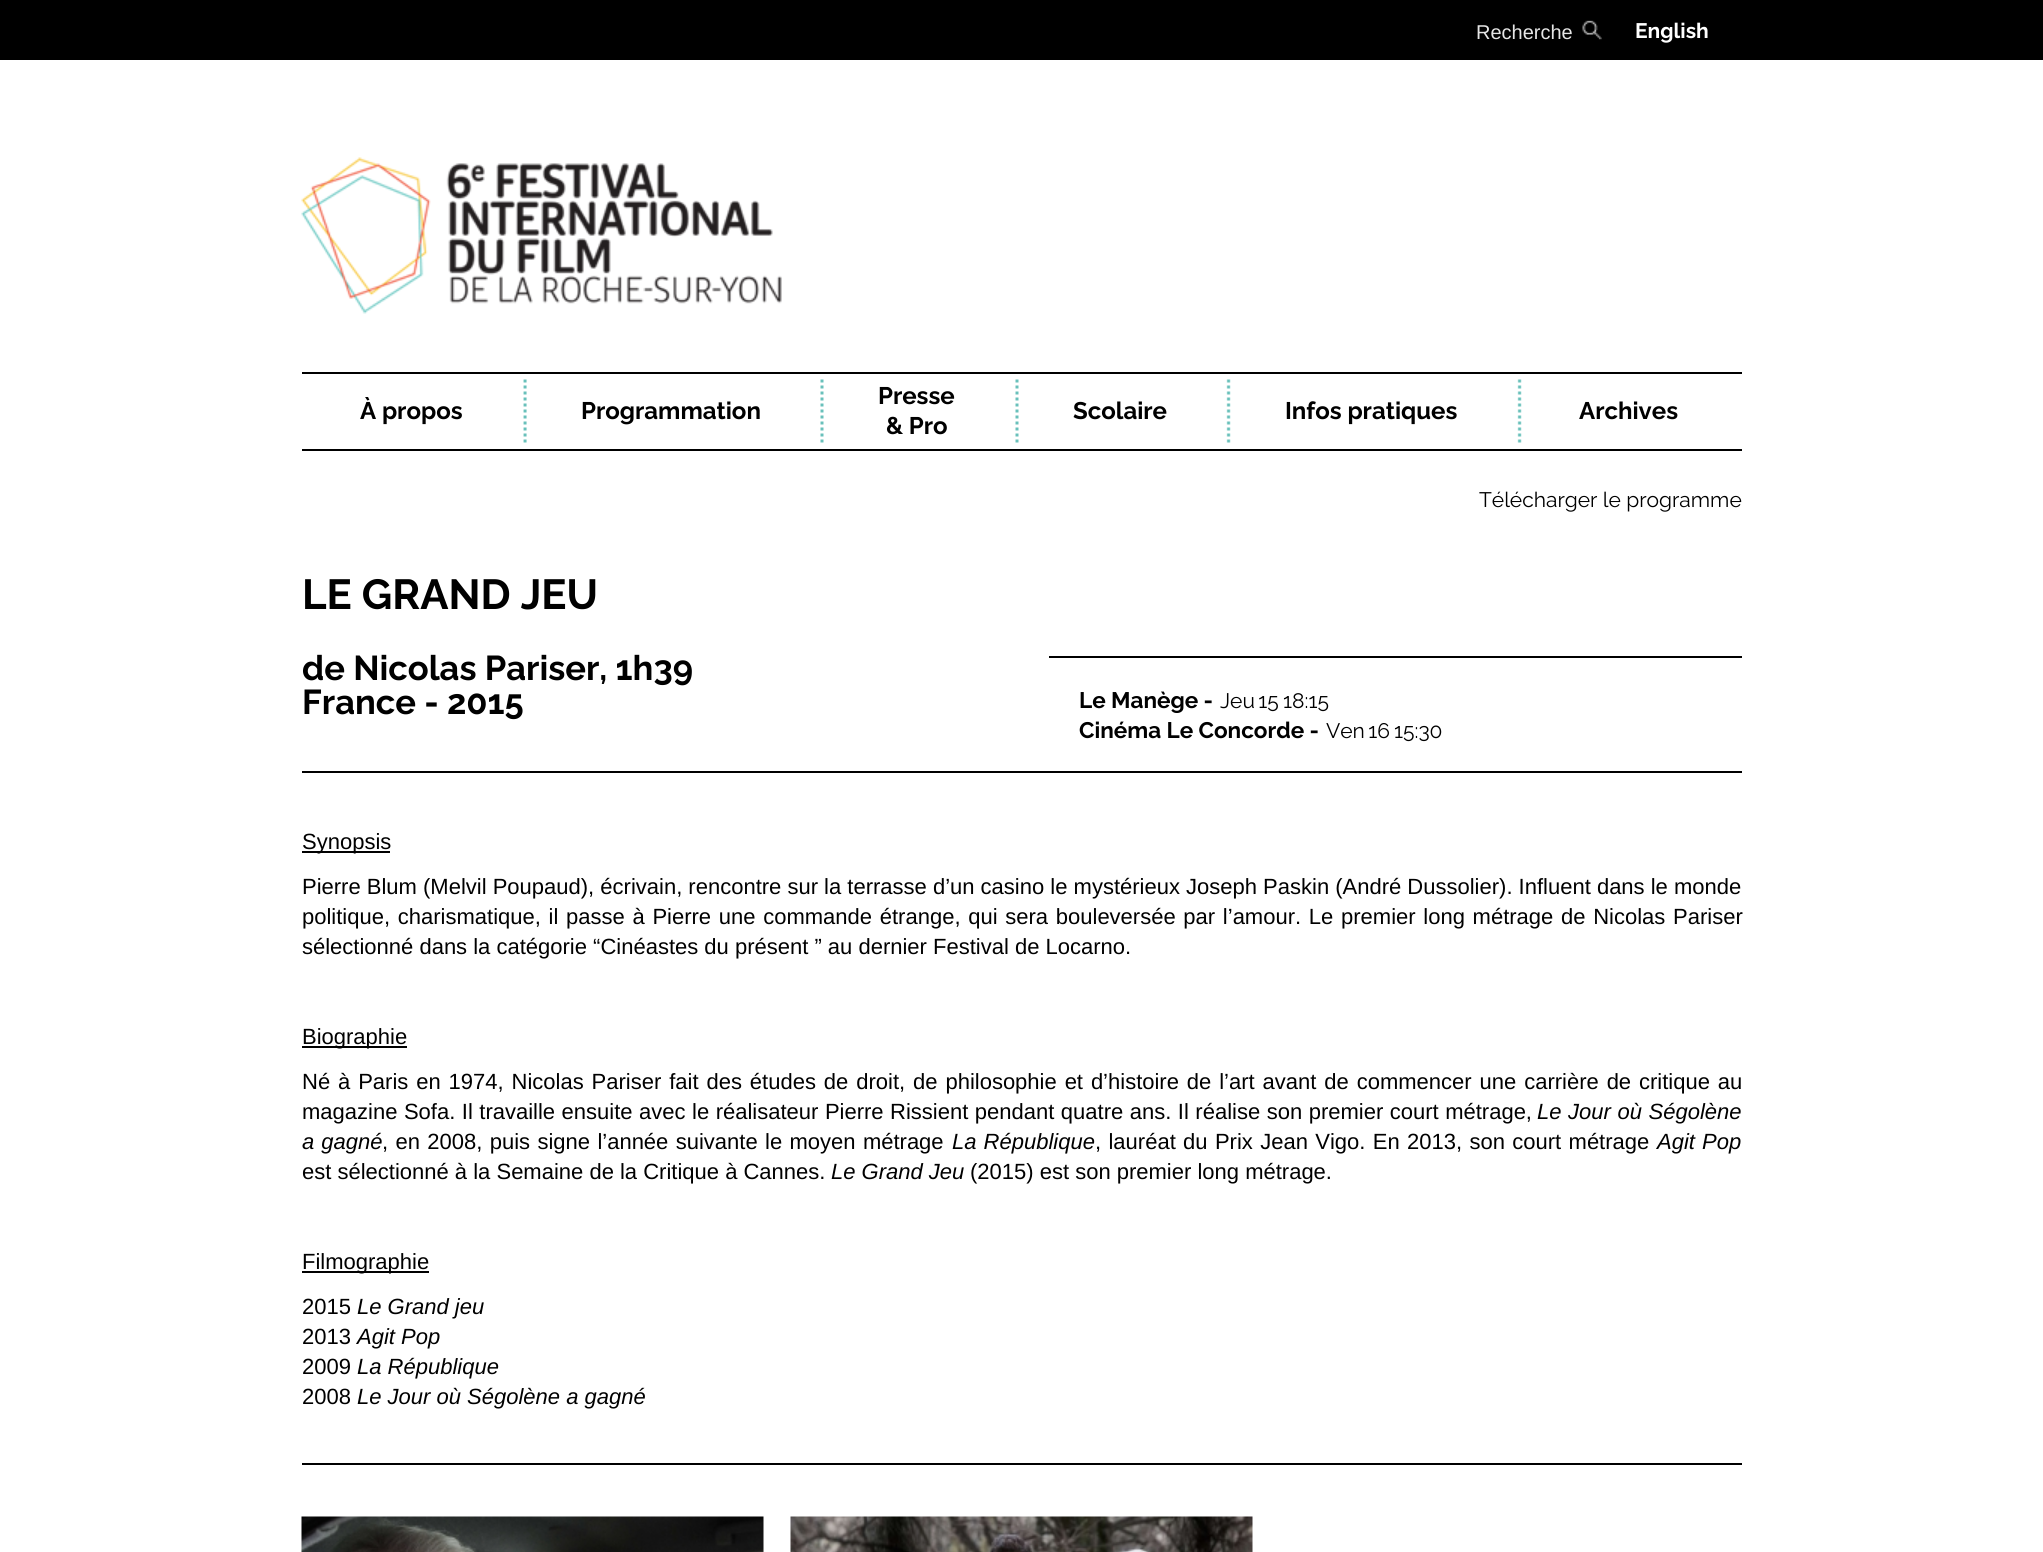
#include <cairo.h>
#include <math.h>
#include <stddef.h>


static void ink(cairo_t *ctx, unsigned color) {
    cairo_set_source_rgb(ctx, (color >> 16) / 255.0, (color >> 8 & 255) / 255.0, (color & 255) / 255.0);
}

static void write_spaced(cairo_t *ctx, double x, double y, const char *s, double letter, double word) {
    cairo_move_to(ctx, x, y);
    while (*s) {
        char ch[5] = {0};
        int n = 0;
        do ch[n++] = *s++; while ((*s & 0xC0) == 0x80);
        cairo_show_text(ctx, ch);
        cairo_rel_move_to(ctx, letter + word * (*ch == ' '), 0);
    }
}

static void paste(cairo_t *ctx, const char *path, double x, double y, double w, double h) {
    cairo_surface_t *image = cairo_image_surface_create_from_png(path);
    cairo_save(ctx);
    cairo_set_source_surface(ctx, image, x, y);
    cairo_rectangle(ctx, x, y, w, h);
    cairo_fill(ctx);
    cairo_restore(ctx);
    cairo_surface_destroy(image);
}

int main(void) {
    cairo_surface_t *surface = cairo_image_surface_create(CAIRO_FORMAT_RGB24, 2043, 1552);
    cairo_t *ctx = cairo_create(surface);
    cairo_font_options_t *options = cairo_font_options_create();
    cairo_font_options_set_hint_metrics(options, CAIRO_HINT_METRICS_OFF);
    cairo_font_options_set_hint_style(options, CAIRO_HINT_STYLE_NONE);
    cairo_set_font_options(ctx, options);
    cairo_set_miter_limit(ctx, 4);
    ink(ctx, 0xFFFFFF);
    cairo_paint(ctx);
    ink(ctx, 0x000000);
    cairo_rectangle(ctx, 0, 0, 2043, 60);
    cairo_fill(ctx);
    cairo_select_font_face(ctx, "Liberation Sans", CAIRO_FONT_SLANT_NORMAL, CAIRO_FONT_WEIGHT_NORMAL);
    cairo_set_font_size(ctx, 20);
    ink(ctx, 0xE6E6E6);
    cairo_move_to(ctx, 1476, 39);
    cairo_show_text(ctx, "Recherche");
    paste(ctx, "media/1.png", 1582, 20, 20, 20);
    cairo_select_font_face(ctx, "Raleway", CAIRO_FONT_SLANT_NORMAL, CAIRO_FONT_WEIGHT_BOLD);
    cairo_set_font_size(ctx, 21);
    ink(ctx, 0xFFFFFF);
    cairo_move_to(ctx, 1635, 38);
    cairo_show_text(ctx, "English");
    paste(ctx, "media/2.png", 301, 157, 481, 157);
    ink(ctx, 0x000000);
    cairo_rectangle(ctx, 302, 372, 1440, 2);
    cairo_fill(ctx);
    cairo_rectangle(ctx, 302, 449, 1440, 2);
    cairo_fill(ctx);
    cairo_set_font_size(ctx, 24);
    cairo_move_to(ctx, 360, 419);
    cairo_show_text(ctx, "À propos");
    paste(ctx, "media/3.png", 523, 379, 4, 64);
    cairo_move_to(ctx, 581, 419);
    cairo_show_text(ctx, "Programmation");
    paste(ctx, "media/4.png", 820, 379, 4, 64);
    cairo_move_to(ctx, 878, 404);
    cairo_show_text(ctx, "Presse");
    cairo_move_to(ctx, 886, 434);
    cairo_show_text(ctx, "& Pro");
    paste(ctx, "media/4.png", 1015, 379, 4, 64);
    cairo_move_to(ctx, 1073, 419);
    cairo_show_text(ctx, "Scolaire");
    paste(ctx, "media/5.png", 1226, 379, 5, 64);
    cairo_move_to(ctx, 1285, 419);
    cairo_show_text(ctx, "Infos pratiques");
    paste(ctx, "media/5.png", 1517, 379, 5, 64);
    cairo_move_to(ctx, 1579, 419);
    cairo_show_text(ctx, "Archives");
    cairo_select_font_face(ctx, "Raleway", CAIRO_FONT_SLANT_NORMAL, CAIRO_FONT_WEIGHT_NORMAL);
    cairo_set_font_size(ctx, 21);
    cairo_move_to(ctx, 1479, 507);
    cairo_show_text(ctx, "Télécharger le programme");
    cairo_select_font_face(ctx, "Raleway", CAIRO_FONT_SLANT_NORMAL, CAIRO_FONT_WEIGHT_BOLD);
    cairo_set_font_size(ctx, 42);
    cairo_move_to(ctx, 302, 609);
    cairo_show_text(ctx, "LE GRAND JEU");
    cairo_set_font_size(ctx, 34.5);
    cairo_move_to(ctx, 302, 680);
    cairo_show_text(ctx, "de Nicolas Pariser, 1h39");
    cairo_move_to(ctx, 302, 714);
    cairo_show_text(ctx, "France - 2015");
    cairo_rectangle(ctx, 1049, 656, 693, 2);
    cairo_fill(ctx);
    cairo_set_font_size(ctx, 22.5);
    cairo_move_to(ctx, 1079, 708);
    cairo_show_text(ctx, "Le Manège -");
    cairo_select_font_face(ctx, "Raleway", CAIRO_FONT_SLANT_NORMAL, CAIRO_FONT_WEIGHT_NORMAL);
    cairo_set_font_size(ctx, 21);
    write_spaced(ctx, 1220, 708, "Jeu 15", 0, -2);
    cairo_move_to(ctx, 1283, 708);
    cairo_show_text(ctx, "18:15");
    cairo_select_font_face(ctx, "Raleway", CAIRO_FONT_SLANT_NORMAL, CAIRO_FONT_WEIGHT_BOLD);
    cairo_set_font_size(ctx, 22.5);
    cairo_move_to(ctx, 1079, 738);
    cairo_show_text(ctx, "Cinéma Le Concorde -");
    cairo_select_font_face(ctx, "Raleway", CAIRO_FONT_SLANT_NORMAL, CAIRO_FONT_WEIGHT_NORMAL);
    cairo_set_font_size(ctx, 21);
    write_spaced(ctx, 1326, 738, "Ven 16", 0, -2);
    cairo_move_to(ctx, 1394, 738);
    cairo_show_text(ctx, "15:30");
    cairo_rectangle(ctx, 302, 771, 1440, 2);
    cairo_fill(ctx);
    cairo_rectangle(ctx, 302, 851, 88, 2);
    cairo_fill(ctx);
    cairo_select_font_face(ctx, "Liberation Sans", CAIRO_FONT_SLANT_NORMAL, CAIRO_FONT_WEIGHT_NORMAL);
    cairo_set_font_size(ctx, 22);
    cairo_move_to(ctx, 302, 849);
    cairo_show_text(ctx, "Synopsis");
    cairo_move_to(ctx, 302, 894);
    cairo_show_text(ctx, "Pierre Blum (Melvil Poupaud), écrivain, rencontre sur la terrasse d’un casino le mystérieux Joseph Paskin (André Dussolier). Influent dans le monde");
    write_spaced(ctx, 302, 924, "politique, charismatique, il passe à Pierre une commande étrange, qui sera bouleversée par l’amour. Le premier long métrage de Nicolas Pariser", 0, 1.6);
    cairo_move_to(ctx, 302, 954);
    cairo_show_text(ctx, "sélectionné dans la catégorie “Cinéastes du présent ” au dernier Festival de Locarno.");
    cairo_rectangle(ctx, 302, 1046, 105, 2);
    cairo_fill(ctx);
    cairo_move_to(ctx, 302, 1044);
    cairo_show_text(ctx, "Biographie");
    write_spaced(ctx, 302, 1089, "Né à Paris en 1974, Nicolas Pariser fait des études de droit, de philosophie et d’histoire de l’art avant de commencer une carrière de critique au", 0, 1.8);
    write_spaced(ctx, 302, 1119, "magazine Sofa. Il travaille ensuite avec le réalisateur Pierre Rissient pendant quatre ans. Il réalise son premier court métrage,", 0, 0.4);
    cairo_select_font_face(ctx, "Liberation Sans", CAIRO_FONT_SLANT_ITALIC, CAIRO_FONT_WEIGHT_NORMAL);
    write_spaced(ctx, 1537, 1119, "Le Jour où Ségolène", 0, 0.5);
    write_spaced(ctx, 302, 1149, "a gagné", 0, 1);
    cairo_select_font_face(ctx, "Liberation Sans", CAIRO_FONT_SLANT_NORMAL, CAIRO_FONT_WEIGHT_NORMAL);
    write_spaced(ctx, 382, 1149, ", en 2008, puis signe l’année suivante le moyen métrage", 0, 1.25);
    cairo_select_font_face(ctx, "Liberation Sans", CAIRO_FONT_SLANT_ITALIC, CAIRO_FONT_WEIGHT_NORMAL);
    write_spaced(ctx, 952, 1149, "La République", 0, 1);
    cairo_select_font_face(ctx, "Liberation Sans", CAIRO_FONT_SLANT_NORMAL, CAIRO_FONT_WEIGHT_NORMAL);
    write_spaced(ctx, 1095, 1149, ", lauréat du Prix Jean Vigo. En 2013, son court métrage", 0, 1.25);
    cairo_select_font_face(ctx, "Liberation Sans", CAIRO_FONT_SLANT_ITALIC, CAIRO_FONT_WEIGHT_NORMAL);
    write_spaced(ctx, 1657, 1149, "Agit Pop", 0, 1);
    cairo_select_font_face(ctx, "Liberation Sans", CAIRO_FONT_SLANT_NORMAL, CAIRO_FONT_WEIGHT_NORMAL);
    cairo_move_to(ctx, 302, 1179);
    cairo_show_text(ctx, "est sélectionné à la Semaine de la Critique à Cannes.");
    cairo_select_font_face(ctx, "Liberation Sans", CAIRO_FONT_SLANT_ITALIC, CAIRO_FONT_WEIGHT_NORMAL);
    cairo_move_to(ctx, 831, 1179);
    cairo_show_text(ctx, "Le Grand Jeu");
    cairo_select_font_face(ctx, "Liberation Sans", CAIRO_FONT_SLANT_NORMAL, CAIRO_FONT_WEIGHT_NORMAL);
    cairo_move_to(ctx, 970, 1179);
    cairo_show_text(ctx, "(2015) est son premier long métrage.");
    cairo_rectangle(ctx, 302, 1271, 127, 2);
    cairo_fill(ctx);
    cairo_move_to(ctx, 302, 1269);
    cairo_show_text(ctx, "Filmographie");
    cairo_move_to(ctx, 302, 1314);
    cairo_show_text(ctx, "2015");
    cairo_select_font_face(ctx, "Liberation Sans", CAIRO_FONT_SLANT_ITALIC, CAIRO_FONT_WEIGHT_NORMAL);
    cairo_move_to(ctx, 357, 1314);
    cairo_show_text(ctx, "Le Grand jeu");
    cairo_select_font_face(ctx, "Liberation Sans", CAIRO_FONT_SLANT_NORMAL, CAIRO_FONT_WEIGHT_NORMAL);
    cairo_move_to(ctx, 302, 1344);
    cairo_show_text(ctx, "2013");
    cairo_select_font_face(ctx, "Liberation Sans", CAIRO_FONT_SLANT_ITALIC, CAIRO_FONT_WEIGHT_NORMAL);
    cairo_move_to(ctx, 357, 1344);
    cairo_show_text(ctx, "Agit Pop");
    cairo_select_font_face(ctx, "Liberation Sans", CAIRO_FONT_SLANT_NORMAL, CAIRO_FONT_WEIGHT_NORMAL);
    cairo_move_to(ctx, 302, 1374);
    cairo_show_text(ctx, "2009");
    cairo_select_font_face(ctx, "Liberation Sans", CAIRO_FONT_SLANT_ITALIC, CAIRO_FONT_WEIGHT_NORMAL);
    cairo_move_to(ctx, 357, 1374);
    cairo_show_text(ctx, "La République");
    cairo_select_font_face(ctx, "Liberation Sans", CAIRO_FONT_SLANT_NORMAL, CAIRO_FONT_WEIGHT_NORMAL);
    cairo_move_to(ctx, 302, 1404);
    cairo_show_text(ctx, "2008");
    cairo_select_font_face(ctx, "Liberation Sans", CAIRO_FONT_SLANT_ITALIC, CAIRO_FONT_WEIGHT_NORMAL);
    cairo_move_to(ctx, 357, 1404);
    cairo_show_text(ctx, "Le Jour où Ségolène a gagné");
    cairo_rectangle(ctx, 302, 1463, 1440, 2);
    cairo_fill(ctx);
    paste(ctx, "media/6.png", 301, 1516, 463, 36);
    paste(ctx, "media/7.png", 790, 1516, 463, 36);
    cairo_surface_write_to_png(surface, "image.png");
    cairo_font_options_destroy(options);
    cairo_destroy(ctx);
    cairo_surface_destroy(surface);
    return 0;
}
